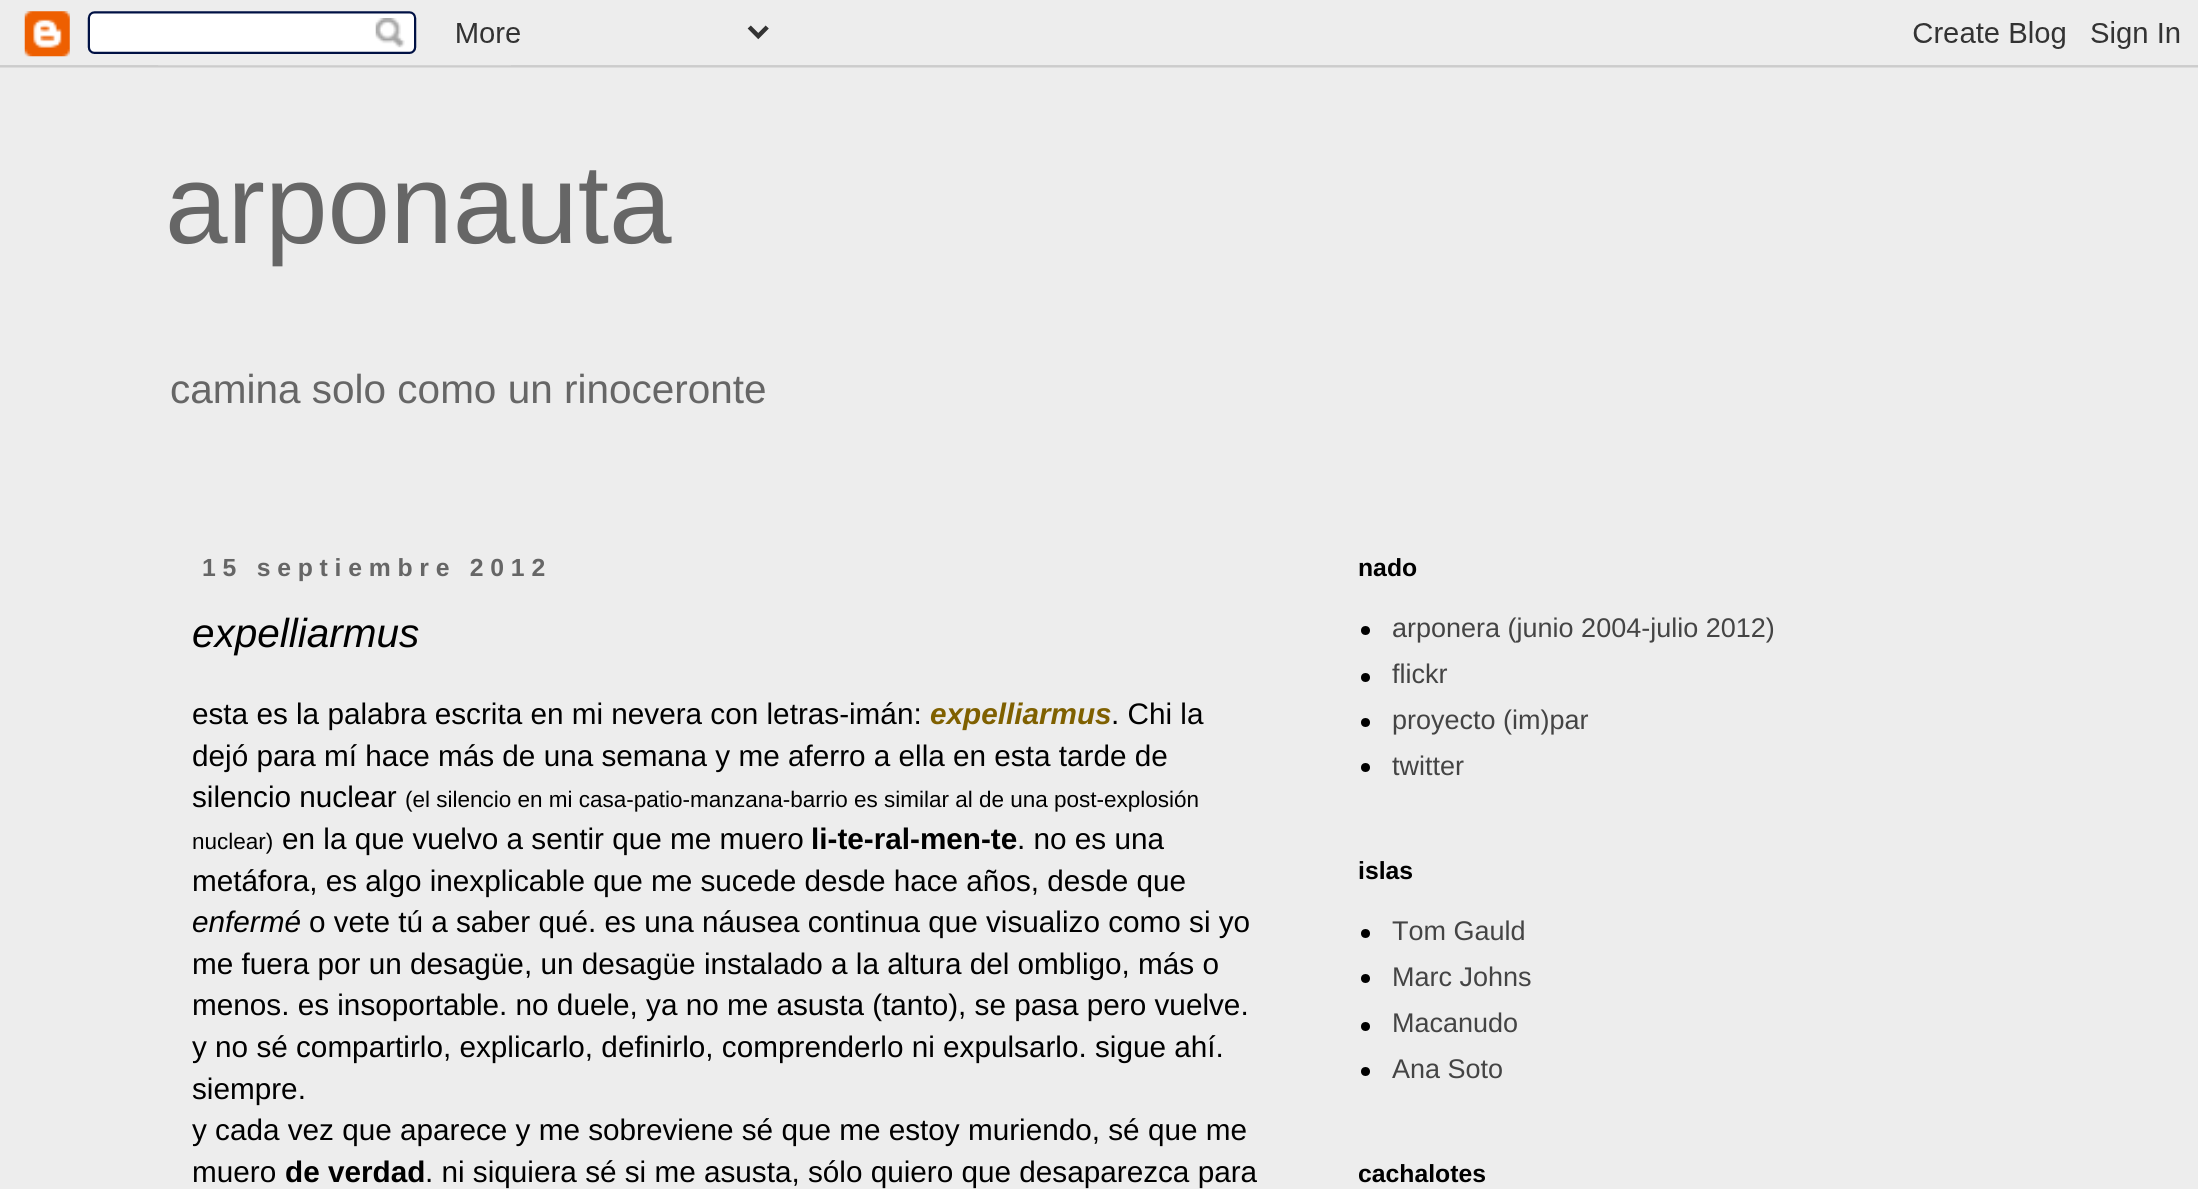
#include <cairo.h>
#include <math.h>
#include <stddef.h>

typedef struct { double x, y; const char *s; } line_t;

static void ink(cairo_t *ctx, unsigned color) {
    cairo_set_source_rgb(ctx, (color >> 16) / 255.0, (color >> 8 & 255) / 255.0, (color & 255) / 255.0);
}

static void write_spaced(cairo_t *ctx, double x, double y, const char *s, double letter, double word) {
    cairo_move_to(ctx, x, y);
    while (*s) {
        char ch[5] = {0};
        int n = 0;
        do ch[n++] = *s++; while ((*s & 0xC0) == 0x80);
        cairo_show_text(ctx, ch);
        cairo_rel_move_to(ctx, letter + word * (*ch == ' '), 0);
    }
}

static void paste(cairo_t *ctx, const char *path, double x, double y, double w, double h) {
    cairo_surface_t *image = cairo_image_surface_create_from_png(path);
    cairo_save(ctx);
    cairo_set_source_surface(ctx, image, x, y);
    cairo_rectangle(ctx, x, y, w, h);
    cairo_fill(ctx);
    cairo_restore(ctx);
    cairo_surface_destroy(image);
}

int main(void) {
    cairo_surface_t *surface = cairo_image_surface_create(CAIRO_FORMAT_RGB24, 2198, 1189);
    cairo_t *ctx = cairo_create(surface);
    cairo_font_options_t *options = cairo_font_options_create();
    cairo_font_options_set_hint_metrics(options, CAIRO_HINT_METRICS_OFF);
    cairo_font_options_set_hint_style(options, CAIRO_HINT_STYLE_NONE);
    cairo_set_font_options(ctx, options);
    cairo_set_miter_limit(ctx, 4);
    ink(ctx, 0xEDEDED);
    cairo_paint(ctx);
    paste(ctx, "media/1.png", 0, 11, 2198, 57);
    cairo_select_font_face(ctx, "Liberation Sans", CAIRO_FONT_SLANT_NORMAL, CAIRO_FONT_WEIGHT_NORMAL);
    cairo_set_font_size(ctx, 112.5);
    ink(ctx, 0x666666);
    cairo_move_to(ctx, 165, 243);
    cairo_show_text(ctx, "arponauta");
    cairo_set_font_size(ctx, 40.5);
    cairo_move_to(ctx, 170, 403);
    cairo_show_text(ctx, "camina solo como un rinoceronte");
    cairo_select_font_face(ctx, "Liberation Sans", CAIRO_FONT_SLANT_NORMAL, CAIRO_FONT_WEIGHT_BOLD);
    cairo_set_font_size(ctx, 24.75);
    write_spaced(ctx, 202, 576, "15 septiembre 2012", 6.75, 0);
    cairo_select_font_face(ctx, "Liberation Sans", CAIRO_FONT_SLANT_ITALIC, CAIRO_FONT_WEIGHT_NORMAL);
    cairo_set_font_size(ctx, 40.5);
    ink(ctx, 0x000000);
    cairo_move_to(ctx, 192, 647);
    cairo_show_text(ctx, "expelliarmus");
    cairo_select_font_face(ctx, "Liberation Sans", CAIRO_FONT_SLANT_NORMAL, CAIRO_FONT_WEIGHT_NORMAL);
    cairo_set_font_size(ctx, 29.7);
    cairo_move_to(ctx, 192, 724);
    cairo_show_text(ctx, "esta es la palabra escrita en mi nevera con letras-imán:");
    cairo_select_font_face(ctx, "Liberation Sans", CAIRO_FONT_SLANT_ITALIC, CAIRO_FONT_WEIGHT_BOLD);
    ink(ctx, 0x7F6000);
    cairo_move_to(ctx, 930, 724);
    cairo_show_text(ctx, "expelliarmus");
    cairo_select_font_face(ctx, "Liberation Sans", CAIRO_FONT_SLANT_NORMAL, CAIRO_FONT_WEIGHT_NORMAL);
    ink(ctx, 0x000000);
    {
        static const line_t items[] = {
            {1111, 724, ". Chi la"},
            {192, 766, "dejó para mí hace más de una semana y me aferro a ella en esta tarde de"},
            {192, 807, "silencio nuclear"},
        };
        for (size_t i = 0; i < sizeof items / sizeof *items; i++) {
            cairo_move_to(ctx, items[i].x, items[i].y);
            cairo_show_text(ctx, items[i].s);
        }
    }
    cairo_set_font_size(ctx, 22.5);
    cairo_move_to(ctx, 405, 807);
    cairo_show_text(ctx, "(el silencio en mi casa-patio-manzana-barrio es similar al de una post-explosión");
    cairo_move_to(ctx, 192, 849);
    cairo_show_text(ctx, "nuclear)");
    cairo_set_font_size(ctx, 29.7);
    cairo_move_to(ctx, 282, 849);
    cairo_show_text(ctx, "en la que vuelvo a sentir que me muero");
    cairo_select_font_face(ctx, "Liberation Sans", CAIRO_FONT_SLANT_NORMAL, CAIRO_FONT_WEIGHT_BOLD);
    cairo_move_to(ctx, 811, 849);
    cairo_show_text(ctx, "li-te-ral-men-te");
    cairo_select_font_face(ctx, "Liberation Sans", CAIRO_FONT_SLANT_NORMAL, CAIRO_FONT_WEIGHT_NORMAL);
    cairo_move_to(ctx, 1017, 849);
    cairo_show_text(ctx, ". no es una");
    cairo_move_to(ctx, 192, 891);
    cairo_show_text(ctx, "metáfora, es algo inexplicable que me sucede desde hace años, desde que");
    cairo_select_font_face(ctx, "Liberation Sans", CAIRO_FONT_SLANT_ITALIC, CAIRO_FONT_WEIGHT_NORMAL);
    cairo_move_to(ctx, 192, 932);
    cairo_show_text(ctx, "enfermé");
    cairo_select_font_face(ctx, "Liberation Sans", CAIRO_FONT_SLANT_NORMAL, CAIRO_FONT_WEIGHT_NORMAL);
    {
        static const line_t items[] = {
            {309, 932, "o vete tú a saber qué. es una náusea continua que visualizo como si yo"},
            {192, 974, "me fuera por un desagüe, un desagüe instalado a la altura del ombligo, más o"},
            {192, 1015, "menos. es insoportable. no duele, ya no me asusta (tanto), se pasa pero vuelve."},
            {192, 1057, "y no sé compartirlo, explicarlo, definirlo, comprenderlo ni expulsarlo. sigue ahí."},
            {192, 1099, "siempre."},
            {192, 1140, "y cada vez que aparece y me sobreviene sé que me estoy muriendo, sé que me"},
            {192, 1182, "muero"},
        };
        for (size_t i = 0; i < sizeof items / sizeof *items; i++) {
            cairo_move_to(ctx, items[i].x, items[i].y);
            cairo_show_text(ctx, items[i].s);
        }
    }
    cairo_select_font_face(ctx, "Liberation Sans", CAIRO_FONT_SLANT_NORMAL, CAIRO_FONT_WEIGHT_BOLD);
    cairo_move_to(ctx, 285, 1182);
    cairo_show_text(ctx, "de verdad");
    cairo_select_font_face(ctx, "Liberation Sans", CAIRO_FONT_SLANT_NORMAL, CAIRO_FONT_WEIGHT_NORMAL);
    cairo_move_to(ctx, 425, 1182);
    cairo_show_text(ctx, ". ni siquiera sé si me asusta, sólo quiero que desaparezca para");
    cairo_select_font_face(ctx, "Liberation Sans", CAIRO_FONT_SLANT_NORMAL, CAIRO_FONT_WEIGHT_BOLD);
    cairo_set_font_size(ctx, 24.75);
    cairo_move_to(ctx, 1358, 576);
    cairo_show_text(ctx, "nado");
    cairo_new_path(ctx);
    cairo_arc(ctx, 1365.5, 630.5, 4.5, 0, 2 * M_PI);
    cairo_fill(ctx);
    cairo_select_font_face(ctx, "Liberation Sans", CAIRO_FONT_SLANT_NORMAL, CAIRO_FONT_WEIGHT_NORMAL);
    cairo_set_font_size(ctx, 27);
    ink(ctx, 0x444444);
    cairo_move_to(ctx, 1392, 637);
    cairo_show_text(ctx, "arponera (junio 2004-julio 2012)");
    ink(ctx, 0x000000);
    cairo_new_path(ctx);
    cairo_arc(ctx, 1365.5, 677.5, 4.5, 0, 2 * M_PI);
    cairo_fill(ctx);
    ink(ctx, 0x444444);
    cairo_move_to(ctx, 1392, 683);
    cairo_show_text(ctx, "flickr");
    ink(ctx, 0x000000);
    cairo_new_path(ctx);
    cairo_arc(ctx, 1365.5, 722.5, 4.5, 0, 2 * M_PI);
    cairo_fill(ctx);
    ink(ctx, 0x444444);
    cairo_move_to(ctx, 1392, 729);
    cairo_show_text(ctx, "proyecto (im)par");
    ink(ctx, 0x000000);
    cairo_new_path(ctx);
    cairo_arc(ctx, 1365.5, 767.5, 4.5, 0, 2 * M_PI);
    cairo_fill(ctx);
    ink(ctx, 0x444444);
    cairo_move_to(ctx, 1392, 775);
    cairo_show_text(ctx, "twitter");
    cairo_select_font_face(ctx, "Liberation Sans", CAIRO_FONT_SLANT_NORMAL, CAIRO_FONT_WEIGHT_BOLD);
    cairo_set_font_size(ctx, 24.75);
    ink(ctx, 0x000000);
    cairo_move_to(ctx, 1358, 879);
    cairo_show_text(ctx, "islas");
    cairo_new_path(ctx);
    cairo_arc(ctx, 1365.5, 933.5, 4.5, 0, 2 * M_PI);
    cairo_fill(ctx);
    cairo_select_font_face(ctx, "Liberation Sans", CAIRO_FONT_SLANT_NORMAL, CAIRO_FONT_WEIGHT_NORMAL);
    cairo_set_font_size(ctx, 27);
    ink(ctx, 0x444444);
    cairo_move_to(ctx, 1392, 940);
    cairo_show_text(ctx, "Tom Gauld");
    ink(ctx, 0x000000);
    cairo_new_path(ctx);
    cairo_arc(ctx, 1365.5, 978.5, 4.5, 0, 2 * M_PI);
    cairo_fill(ctx);
    ink(ctx, 0x444444);
    cairo_move_to(ctx, 1392, 986);
    cairo_show_text(ctx, "Marc Johns");
    ink(ctx, 0x000000);
    cairo_new_path(ctx);
    cairo_arc(ctx, 1365.5, 1026.5, 4.5, 0, 2 * M_PI);
    cairo_fill(ctx);
    ink(ctx, 0x444444);
    cairo_move_to(ctx, 1392, 1032);
    cairo_show_text(ctx, "Macanudo");
    ink(ctx, 0x000000);
    cairo_new_path(ctx);
    cairo_arc(ctx, 1365.5, 1071.5, 4.5, 0, 2 * M_PI);
    cairo_fill(ctx);
    ink(ctx, 0x444444);
    cairo_move_to(ctx, 1392, 1078);
    cairo_show_text(ctx, "Ana Soto");
    cairo_select_font_face(ctx, "Liberation Sans", CAIRO_FONT_SLANT_NORMAL, CAIRO_FONT_WEIGHT_BOLD);
    cairo_set_font_size(ctx, 24.75);
    ink(ctx, 0x000000);
    cairo_move_to(ctx, 1358, 1182);
    cairo_show_text(ctx, "cachalotes");
    cairo_surface_write_to_png(surface, "image.png");
    cairo_font_options_destroy(options);
    cairo_destroy(ctx);
    cairo_surface_destroy(surface);
    return 0;
}
